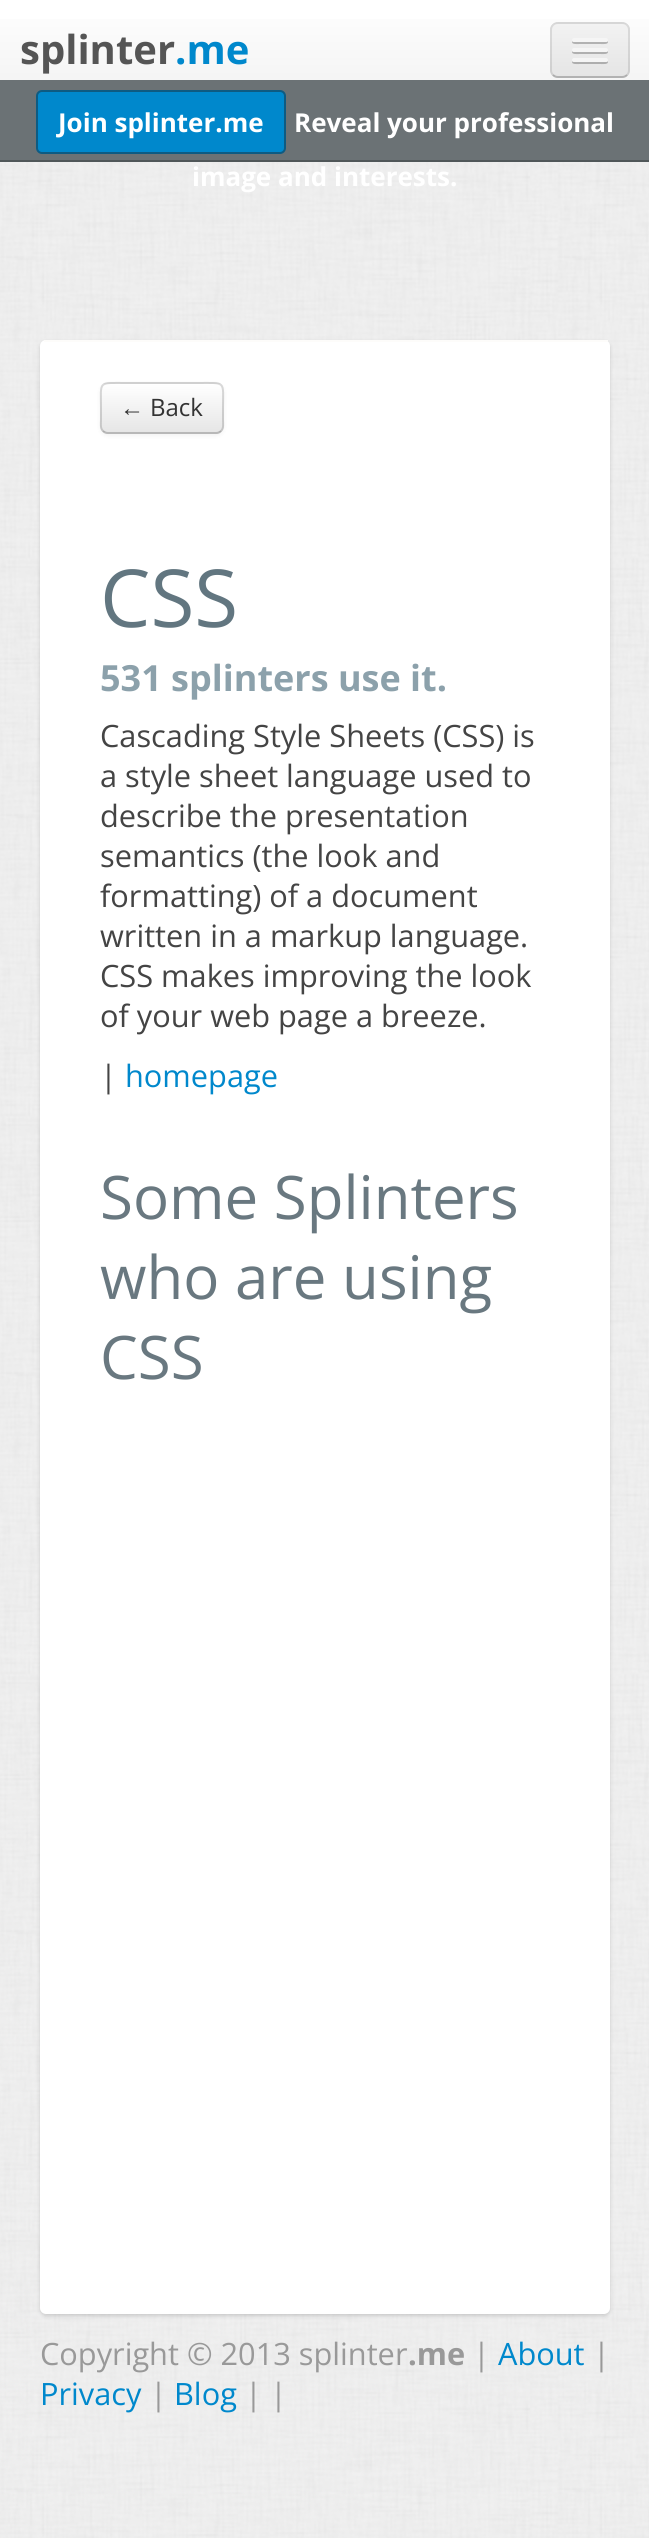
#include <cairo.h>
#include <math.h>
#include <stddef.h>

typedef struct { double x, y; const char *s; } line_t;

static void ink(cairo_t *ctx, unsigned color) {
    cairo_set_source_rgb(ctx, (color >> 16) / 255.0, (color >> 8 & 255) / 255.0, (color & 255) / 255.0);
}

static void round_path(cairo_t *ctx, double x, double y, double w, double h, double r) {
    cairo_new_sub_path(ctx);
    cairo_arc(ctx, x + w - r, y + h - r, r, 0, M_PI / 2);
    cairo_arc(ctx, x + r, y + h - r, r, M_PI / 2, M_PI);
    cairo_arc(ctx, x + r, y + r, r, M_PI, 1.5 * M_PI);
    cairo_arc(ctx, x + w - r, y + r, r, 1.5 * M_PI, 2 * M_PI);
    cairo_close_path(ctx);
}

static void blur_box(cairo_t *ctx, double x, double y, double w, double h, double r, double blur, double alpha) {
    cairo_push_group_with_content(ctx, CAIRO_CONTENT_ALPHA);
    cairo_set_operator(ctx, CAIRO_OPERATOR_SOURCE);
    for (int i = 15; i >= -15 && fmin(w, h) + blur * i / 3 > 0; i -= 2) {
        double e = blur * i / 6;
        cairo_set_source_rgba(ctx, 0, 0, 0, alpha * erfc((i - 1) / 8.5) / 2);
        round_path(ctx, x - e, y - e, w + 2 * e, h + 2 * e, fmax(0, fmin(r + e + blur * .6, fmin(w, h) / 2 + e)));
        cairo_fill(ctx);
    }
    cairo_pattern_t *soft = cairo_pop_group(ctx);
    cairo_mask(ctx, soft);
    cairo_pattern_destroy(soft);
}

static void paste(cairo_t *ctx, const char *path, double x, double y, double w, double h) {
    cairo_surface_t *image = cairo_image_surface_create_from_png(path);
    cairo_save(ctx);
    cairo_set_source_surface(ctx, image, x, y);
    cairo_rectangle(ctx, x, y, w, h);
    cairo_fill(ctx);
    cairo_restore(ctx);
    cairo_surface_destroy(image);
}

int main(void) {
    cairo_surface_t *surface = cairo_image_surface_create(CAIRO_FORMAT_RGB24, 649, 2538);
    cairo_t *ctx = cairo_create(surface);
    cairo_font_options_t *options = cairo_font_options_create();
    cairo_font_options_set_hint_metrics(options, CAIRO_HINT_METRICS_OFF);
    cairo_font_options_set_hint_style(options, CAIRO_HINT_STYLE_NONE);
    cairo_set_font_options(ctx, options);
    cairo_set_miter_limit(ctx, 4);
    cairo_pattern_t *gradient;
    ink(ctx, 0xFFFFFF);
    cairo_paint(ctx);
    paste(ctx, "media/1.png", 0, 162, 649, 2376);
    gradient = cairo_pattern_create_linear(325, 0, 325, 100);
    cairo_pattern_add_color_stop_rgba(gradient, 0, 1, 1, 1, 1);
    cairo_pattern_add_color_stop_rgba(gradient, 1, 0.949, 0.949, 0.949, 1);
    cairo_set_source(ctx, gradient);
    cairo_pattern_destroy(gradient);
    cairo_rectangle(ctx, 0, 19, 649, 61);
    cairo_fill(ctx);
    cairo_select_font_face(ctx, "Open Sans", CAIRO_FONT_SLANT_NORMAL, CAIRO_FONT_WEIGHT_BOLD);
    cairo_set_font_size(ctx, 40);
    ink(ctx, 0x555555);
    cairo_move_to(ctx, 20, 64);
    cairo_show_text(ctx, "splinter");
    ink(ctx, 0x0088CC);
    cairo_move_to(ctx, 175, 64);
    cairo_show_text(ctx, ".me");
    ink(ctx, 0xEDEDED);
    round_path(ctx, 550, 22, 80, 56, 8);
    cairo_fill(ctx);
    cairo_save(ctx);
    round_path(ctx, 550, 22, 80, 56, 8);
    cairo_clip(ctx);
    gradient = cairo_pattern_create_linear(590, 24, 590, 76);
    cairo_pattern_add_color_stop_rgba(gradient, 0, 0.949, 0.949, 0.949, 1);
    cairo_pattern_add_color_stop_rgba(gradient, 1, 0.898, 0.898, 0.898, 1);
    cairo_set_source(ctx, gradient);
    cairo_pattern_destroy(gradient);
    cairo_rectangle(ctx, 550, 24, 80, 52);
    cairo_fill(ctx);
    cairo_restore(ctx);
    cairo_new_path(ctx);
    cairo_move_to(ctx, 627, 75);
    cairo_curve_to(ctx, 625.5, 76.5, 624, 77, 622, 77);
    cairo_line_to(ctx, 558, 77);
    cairo_curve_to(ctx, 556, 77, 554.5, 76.5, 553, 75);
    cairo_set_source_rgba(ctx, 0, 0, 0, 0.25);
    cairo_stroke(ctx);
    cairo_new_path(ctx);
    cairo_move_to(ctx, 553, 75);
    cairo_curve_to(ctx, 551.5, 73.5, 551, 72, 551, 70);
    cairo_line_to(ctx, 551, 30);
    cairo_curve_to(ctx, 551, 28, 551.5, 26.5, 553, 25);
    cairo_curve_to(ctx, 554.5, 23.5, 556, 23, 558, 23);
    cairo_line_to(ctx, 622, 23);
    cairo_curve_to(ctx, 624, 23, 625.5, 23.5, 627, 25);
    cairo_curve_to(ctx, 628.5, 26.5, 629, 28, 629, 30);
    cairo_line_to(ctx, 629, 70);
    cairo_curve_to(ctx, 629, 72, 628.5, 73.5, 627, 75);
    cairo_set_source_rgba(ctx, 0, 0, 0, 0.1);
    cairo_stroke(ctx);
    ink(ctx, 0xB2B2B2);
    cairo_new_path(ctx);
    cairo_move_to(ctx, 572.5, 41);
    cairo_curve_to(ctx, 570, 45, 579, 44, 579.5, 44);
    cairo_line_to(ctx, 600.5, 44);
    cairo_curve_to(ctx, 601, 44, 610, 45, 607.5, 41);
    cairo_curve_to(ctx, 607.5, 41.5, 606.5, 42, 606, 42);
    cairo_line_to(ctx, 574, 42);
    cairo_curve_to(ctx, 573.5, 42, 572.5, 41.5, 572.5, 41);
    cairo_close_path(ctx);
    cairo_fill(ctx);
    ink(ctx, 0xF5F5F5);
    round_path(ctx, 572, 38, 36, 4, 2);
    cairo_fill(ctx);
    ink(ctx, 0xB0B0B0);
    cairo_new_path(ctx);
    cairo_move_to(ctx, 572.5, 51);
    cairo_curve_to(ctx, 570, 55, 579, 54, 579.5, 54);
    cairo_line_to(ctx, 600.5, 54);
    cairo_curve_to(ctx, 601, 54, 610, 55, 607.5, 51);
    cairo_curve_to(ctx, 607.5, 51.5, 606.5, 52, 606, 52);
    cairo_line_to(ctx, 574, 52);
    cairo_curve_to(ctx, 573.5, 52, 572.5, 51.5, 572.5, 51);
    cairo_close_path(ctx);
    cairo_fill(ctx);
    ink(ctx, 0xF5F5F5);
    round_path(ctx, 572, 48, 36, 4, 2);
    cairo_fill(ctx);
    ink(ctx, 0xAEAEAE);
    cairo_new_path(ctx);
    cairo_move_to(ctx, 572.5, 61);
    cairo_curve_to(ctx, 570, 65, 579, 64, 579.5, 64);
    cairo_line_to(ctx, 600.5, 64);
    cairo_curve_to(ctx, 601, 64, 610, 65, 607.5, 61);
    cairo_curve_to(ctx, 607.5, 61.5, 606.5, 62, 606, 62);
    cairo_line_to(ctx, 574, 62);
    cairo_curve_to(ctx, 573.5, 62, 572.5, 61.5, 572.5, 61);
    cairo_close_path(ctx);
    cairo_fill(ctx);
    ink(ctx, 0xF5F5F5);
    round_path(ctx, 572, 58, 36, 4, 2);
    cairo_fill(ctx);
    ink(ctx, 0x6B7275);
    cairo_rectangle(ctx, 0, 80, 649, 80);
    cairo_fill(ctx);
    ink(ctx, 0x505759);
    cairo_rectangle(ctx, 0, 160, 649, 2);
    cairo_fill(ctx);
    ink(ctx, 0x0088CC);
    round_path(ctx, 37, 91, 248, 62, 5);
    cairo_fill_preserve(ctx);
    ink(ctx, 0x0E5B82);
    cairo_stroke(ctx);
    cairo_set_font_size(ctx, 26);
    ink(ctx, 0xFFFFFF);
    {
        static const line_t items[] = {
            {58, 132, "Join splinter.me"},
            {294, 132, "Reveal your professional"},
            {192, 186, "image and interests."},
        };
        for (size_t i = 0; i < sizeof items / sizeof *items; i++) {
            cairo_move_to(ctx, items[i].x, items[i].y);
            cairo_show_text(ctx, items[i].s);
        }
    }
    ink(ctx, 0x000000);
    blur_box(ctx, 40, 342, 570, 1974, 6, 2, 0.15);
    ink(ctx, 0xFFFFFF);
    round_path(ctx, 40, 340, 570, 1974, 6);
    cairo_fill(ctx);
    ink(ctx, 0xFDFCFA);
    cairo_rectangle(ctx, 44, 340, 564, 2);
    cairo_fill(ctx);
    ink(ctx, 0x000000);
    blur_box(ctx, 100, 384, 124, 52, 8, 2, 0.05);
    ink(ctx, 0xF5F5F5);
    round_path(ctx, 100, 382, 124, 52, 8);
    cairo_fill(ctx);
    cairo_save(ctx);
    round_path(ctx, 100, 382, 124, 52, 8);
    cairo_clip(ctx);
    gradient = cairo_pattern_create_linear(162, 384, 162, 432);
    cairo_pattern_add_color_stop_rgba(gradient, 0, 1, 1, 1, 1);
    cairo_pattern_add_color_stop_rgba(gradient, 1, 0.902, 0.902, 0.902, 1);
    cairo_set_source(ctx, gradient);
    cairo_pattern_destroy(gradient);
    cairo_rectangle(ctx, 100, 384, 124, 48);
    cairo_fill(ctx);
    cairo_restore(ctx);
    cairo_new_path(ctx);
    cairo_move_to(ctx, 221, 431);
    cairo_curve_to(ctx, 219.5, 432.5, 218, 433, 216, 433);
    cairo_line_to(ctx, 108, 433);
    cairo_curve_to(ctx, 106, 433, 104.5, 432.5, 103, 431);
    cairo_set_source_rgba(ctx, 0, 0, 0, 0.25);
    cairo_stroke(ctx);
    cairo_new_path(ctx);
    cairo_move_to(ctx, 103, 431);
    cairo_curve_to(ctx, 100, 428, 101, 423.5, 101, 420);
    cairo_line_to(ctx, 101, 408);
    cairo_curve_to(ctx, 101, 380.5, 97.5, 383, 126, 383);
    cairo_line_to(ctx, 198, 383);
    cairo_curve_to(ctx, 226.5, 383, 223, 380.5, 223, 408);
    cairo_line_to(ctx, 223, 420);
    cairo_curve_to(ctx, 223, 423.5, 224, 428, 221, 431);
    cairo_set_source_rgba(ctx, 0, 0, 0, 0.15);
    cairo_stroke(ctx);
    cairo_select_font_face(ctx, "Liberation Sans", CAIRO_FONT_SLANT_NORMAL, CAIRO_FONT_WEIGHT_NORMAL);
    cairo_set_font_size(ctx, 24);
    ink(ctx, 0x333333);
    cairo_move_to(ctx, 120, 416);
    cairo_show_text(ctx, "←");
    cairo_select_font_face(ctx, "Open Sans", CAIRO_FONT_SLANT_NORMAL, CAIRO_FONT_WEIGHT_NORMAL);
    cairo_move_to(ctx, 150, 416);
    cairo_show_text(ctx, "Back");
    cairo_set_font_size(ctx, 80);
    ink(ctx, 0x627680);
    cairo_move_to(ctx, 100, 627);
    cairo_show_text(ctx, "CSS");
    cairo_select_font_face(ctx, "Open Sans", CAIRO_FONT_SLANT_NORMAL, CAIRO_FONT_WEIGHT_BOLD);
    cairo_set_font_size(ctx, 36);
    ink(ctx, 0x8CA1AB);
    cairo_move_to(ctx, 100, 691);
    cairo_show_text(ctx, "531 splinters use it.");
    cairo_select_font_face(ctx, "Open Sans", CAIRO_FONT_SLANT_NORMAL, CAIRO_FONT_WEIGHT_NORMAL);
    cairo_set_font_size(ctx, 30.75);
    ink(ctx, 0x444444);
    {
        static const line_t items[] = {
            {100, 747, "Cascading Style Sheets (CSS) is"},
            {100, 787, "a style sheet language used to"},
            {100, 827, "describe the presentation"},
            {100, 867, "semantics (the look and"},
            {100, 907, "formatting) of a document"},
            {100, 947, "written in a markup language."},
            {100, 987, "CSS makes improving the look"},
            {100, 1027, "of your web page a breeze."},
            {100, 1087, "|"},
        };
        for (size_t i = 0; i < sizeof items / sizeof *items; i++) {
            cairo_move_to(ctx, items[i].x, items[i].y);
            cairo_show_text(ctx, items[i].s);
        }
    }
    ink(ctx, 0x0088CC);
    cairo_move_to(ctx, 125, 1087);
    cairo_show_text(ctx, "homepage");
    cairo_set_font_size(ctx, 60);
    ink(ctx, 0x697880);
    {
        static const line_t items[] = {
            {100, 1219, "Some Splinters"},
            {100, 1299, "who are using"},
            {100, 1379, "CSS"},
        };
        for (size_t i = 0; i < sizeof items / sizeof *items; i++) {
            cairo_move_to(ctx, items[i].x, items[i].y);
            cairo_show_text(ctx, items[i].s);
        }
    }
    cairo_set_font_size(ctx, 30.75);
    ink(ctx, 0x999999);
    cairo_move_to(ctx, 40, 2365);
    cairo_show_text(ctx, "Copyright © 2013 splinter");
    cairo_select_font_face(ctx, "Open Sans", CAIRO_FONT_SLANT_NORMAL, CAIRO_FONT_WEIGHT_BOLD);
    cairo_move_to(ctx, 408, 2365);
    cairo_show_text(ctx, ".me");
    cairo_select_font_face(ctx, "Open Sans", CAIRO_FONT_SLANT_NORMAL, CAIRO_FONT_WEIGHT_NORMAL);
    cairo_move_to(ctx, 473, 2365);
    cairo_show_text(ctx, "|");
    ink(ctx, 0x0088CC);
    cairo_move_to(ctx, 498, 2365);
    cairo_show_text(ctx, "About");
    ink(ctx, 0x999999);
    cairo_move_to(ctx, 593, 2365);
    cairo_show_text(ctx, "|");
    ink(ctx, 0x0088CC);
    cairo_move_to(ctx, 40, 2405);
    cairo_show_text(ctx, "Privacy");
    ink(ctx, 0x999999);
    cairo_move_to(ctx, 150, 2405);
    cairo_show_text(ctx, "|");
    ink(ctx, 0x0088CC);
    cairo_move_to(ctx, 174, 2405);
    cairo_show_text(ctx, "Blog");
    ink(ctx, 0x999999);
    cairo_move_to(ctx, 245, 2405);
    cairo_show_text(ctx, "| |");
    cairo_surface_write_to_png(surface, "image.png");
    cairo_font_options_destroy(options);
    cairo_destroy(ctx);
    cairo_surface_destroy(surface);
    return 0;
}
